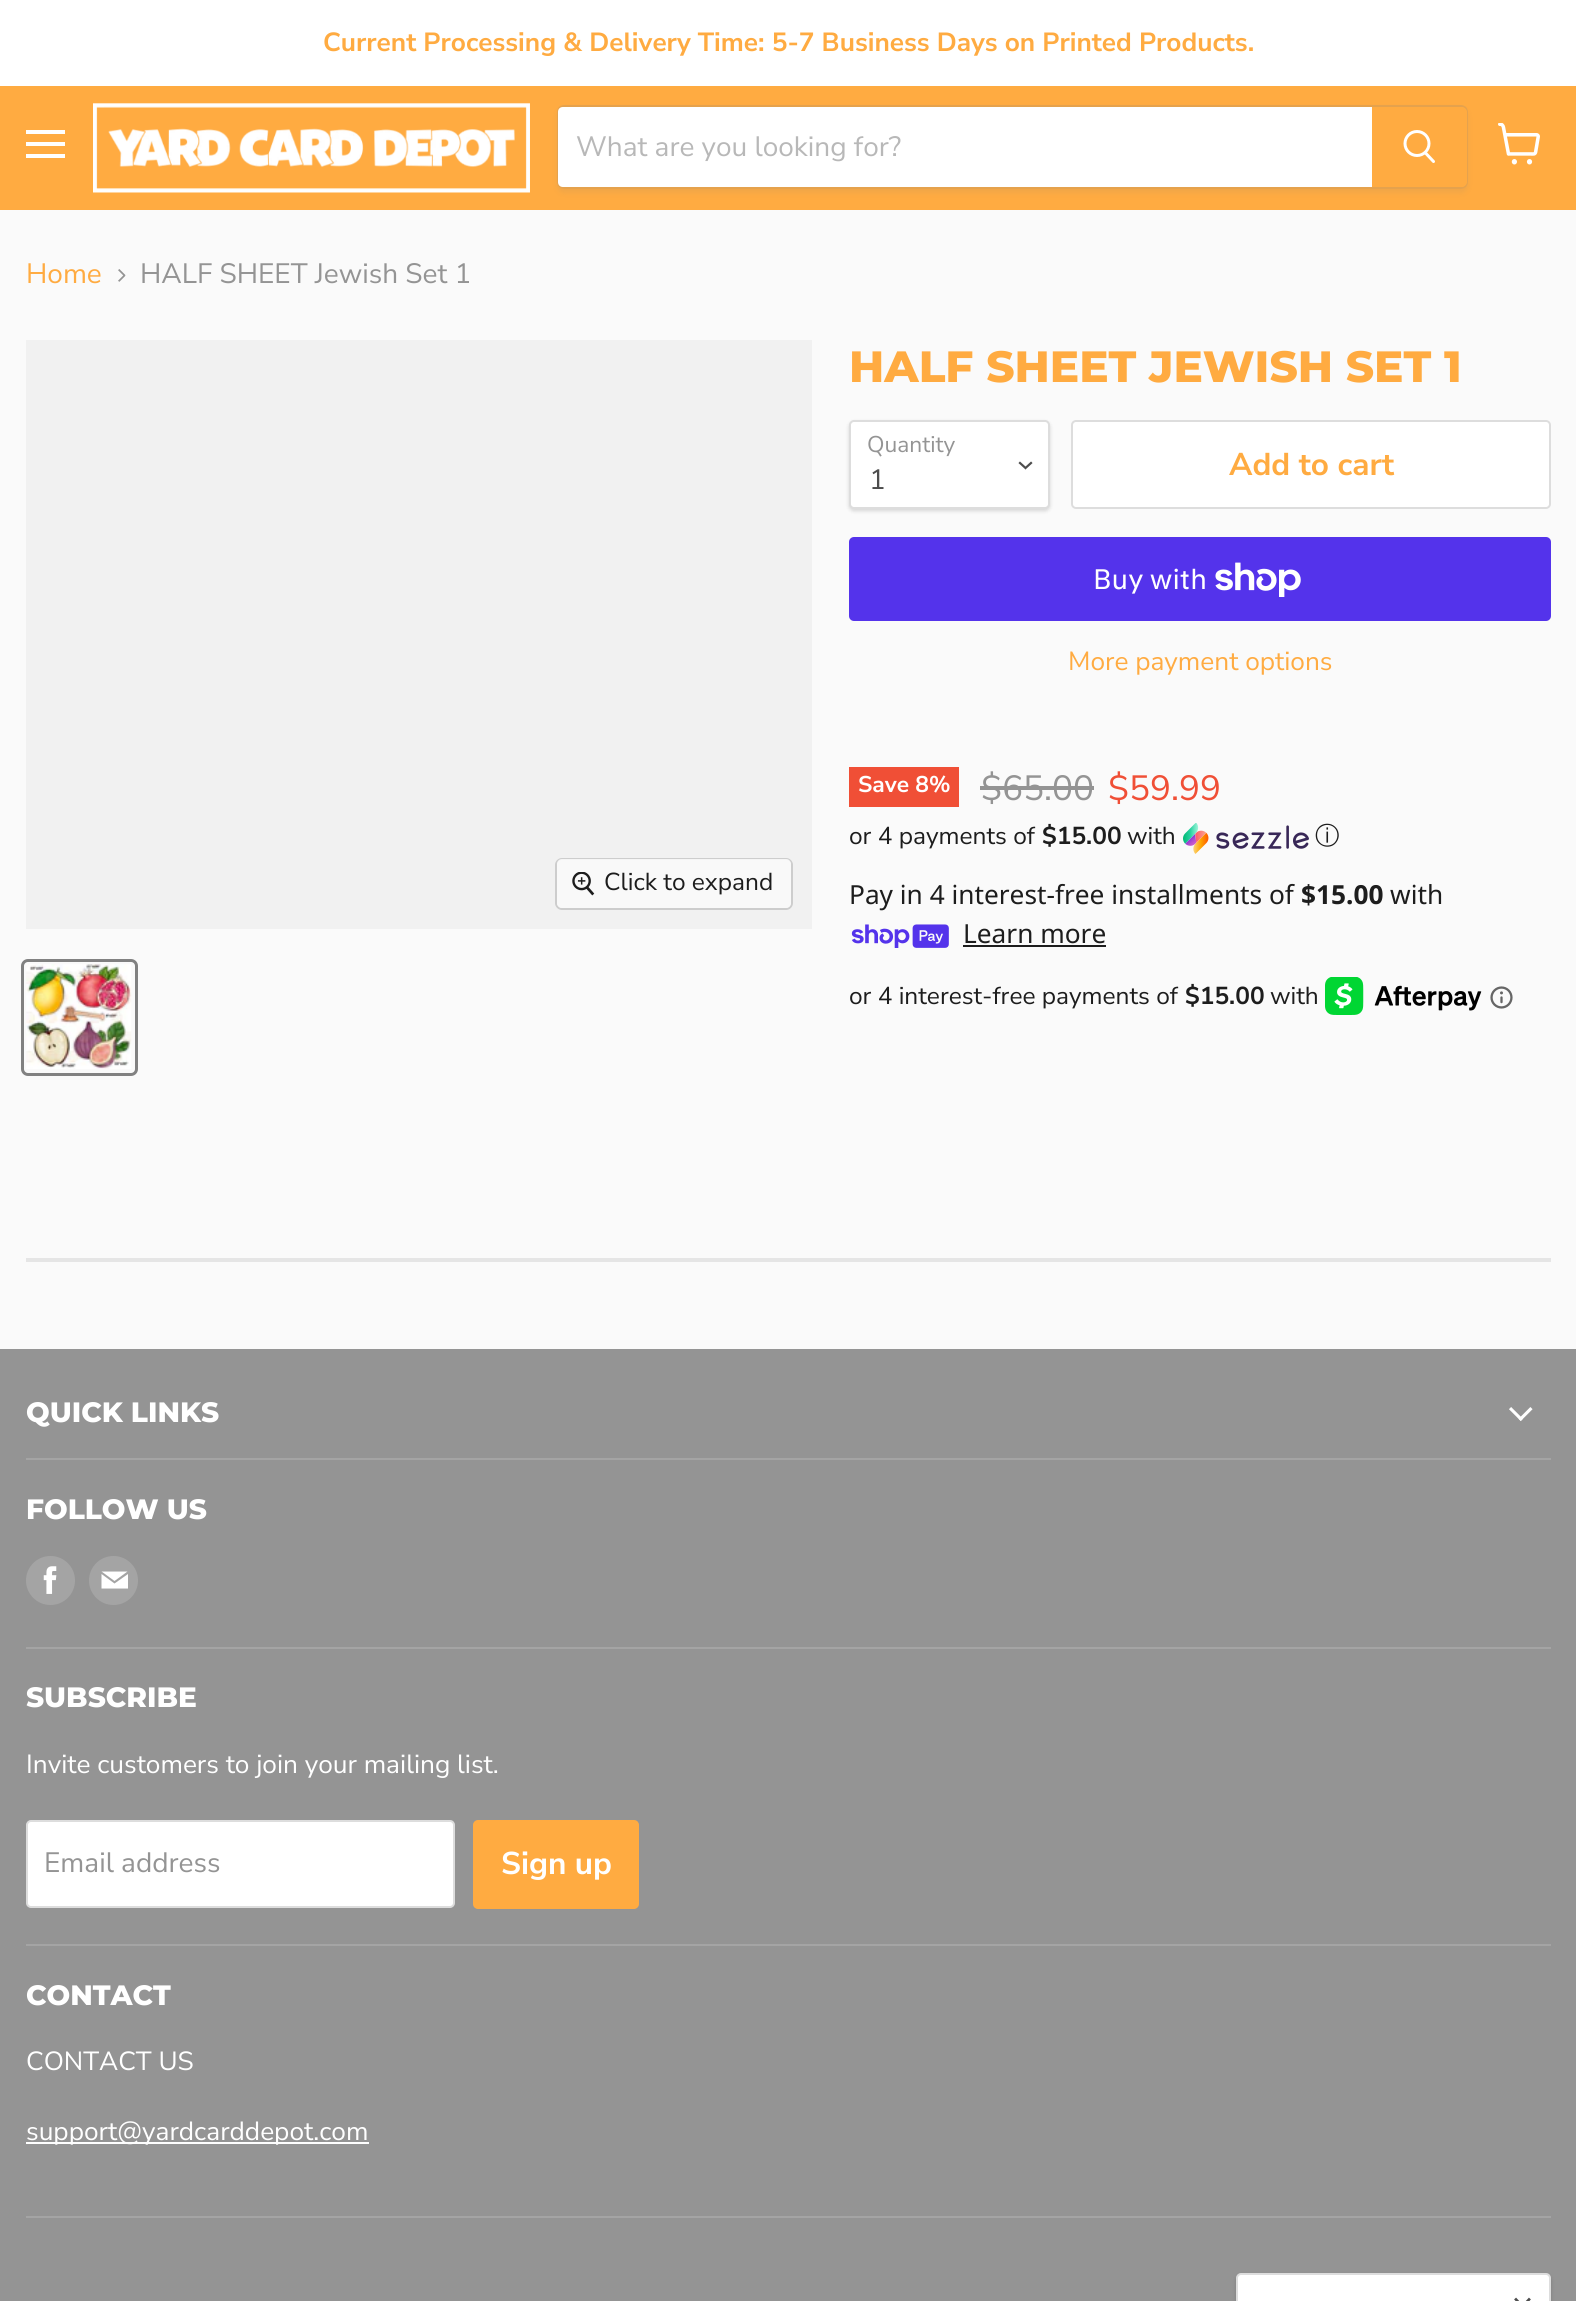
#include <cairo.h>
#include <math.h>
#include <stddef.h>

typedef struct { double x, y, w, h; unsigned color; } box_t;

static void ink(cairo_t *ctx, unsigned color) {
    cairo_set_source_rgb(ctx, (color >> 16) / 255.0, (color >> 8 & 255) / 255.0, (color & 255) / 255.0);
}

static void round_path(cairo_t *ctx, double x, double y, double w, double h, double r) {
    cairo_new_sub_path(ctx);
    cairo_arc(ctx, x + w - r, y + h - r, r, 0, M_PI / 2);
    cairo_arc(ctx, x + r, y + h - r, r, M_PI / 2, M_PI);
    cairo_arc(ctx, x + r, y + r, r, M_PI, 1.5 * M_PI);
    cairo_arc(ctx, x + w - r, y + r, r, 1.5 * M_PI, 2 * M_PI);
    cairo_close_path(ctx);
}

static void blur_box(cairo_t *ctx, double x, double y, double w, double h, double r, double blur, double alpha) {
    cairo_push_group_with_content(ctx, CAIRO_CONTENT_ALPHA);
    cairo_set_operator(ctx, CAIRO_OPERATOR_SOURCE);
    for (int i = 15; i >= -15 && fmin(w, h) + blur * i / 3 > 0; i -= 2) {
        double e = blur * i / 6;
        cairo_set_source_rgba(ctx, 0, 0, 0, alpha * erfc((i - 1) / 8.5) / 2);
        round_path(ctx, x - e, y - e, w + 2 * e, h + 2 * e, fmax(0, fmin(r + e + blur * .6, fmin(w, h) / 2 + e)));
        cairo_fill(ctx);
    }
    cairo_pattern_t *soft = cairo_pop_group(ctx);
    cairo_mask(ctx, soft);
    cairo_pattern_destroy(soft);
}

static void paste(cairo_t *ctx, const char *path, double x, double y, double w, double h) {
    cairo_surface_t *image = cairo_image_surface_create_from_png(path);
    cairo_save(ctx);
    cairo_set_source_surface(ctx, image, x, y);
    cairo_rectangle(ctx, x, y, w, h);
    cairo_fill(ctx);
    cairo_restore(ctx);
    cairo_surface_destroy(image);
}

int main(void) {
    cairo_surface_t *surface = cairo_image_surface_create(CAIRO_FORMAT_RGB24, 1576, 2301);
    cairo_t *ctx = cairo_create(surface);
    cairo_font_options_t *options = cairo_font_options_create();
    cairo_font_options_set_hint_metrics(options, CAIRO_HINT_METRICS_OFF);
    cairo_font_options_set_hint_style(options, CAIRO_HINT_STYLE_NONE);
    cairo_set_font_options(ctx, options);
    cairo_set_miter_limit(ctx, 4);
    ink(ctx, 0xFAFAFA);
    cairo_paint(ctx);
    ink(ctx, 0xFFFFFF);
    cairo_rectangle(ctx, 0, 0, 1576, 86);
    cairo_fill(ctx);
    cairo_select_font_face(ctx, "Nunito Sans", CAIRO_FONT_SLANT_NORMAL, CAIRO_FONT_WEIGHT_BOLD);
    cairo_set_font_size(ctx, 26.25);
    ink(ctx, 0xFFAB41);
    cairo_move_to(ctx, 323, 51);
    cairo_show_text(ctx, "Current Processing & Delivery Time: 5-7 Business Days on Printed Products.");
    {
        static const box_t items[] = {
            {0, 86, 1576, 124, 0xFFAB41},
            {26, 130, 39, 4, 0xFFFFFF},
            {26, 142, 39, 4, 0xFFFFFF},
            {26, 154, 39, 4, 0xFFFFFF},
        };
        for (size_t i = 0; i < sizeof items / sizeof *items; i++) {
            ink(ctx, items[i].color);
            cairo_rectangle(ctx, items[i].x, items[i].y, items[i].w, items[i].h);
            cairo_fill(ctx);
        }
    }
    paste(ctx, "media/1.png", 93, 103, 437, 90);
    cairo_save(ctx);
    cairo_set_fill_rule(ctx, CAIRO_FILL_RULE_EVEN_ODD);
    cairo_new_path(ctx);
    cairo_move_to(ctx, 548, 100);
    cairo_line_to(ctx, 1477, 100);
    cairo_line_to(ctx, 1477, 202);
    cairo_line_to(ctx, 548, 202);
    cairo_close_path(ctx);
    cairo_move_to(ctx, 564, 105);
    cairo_line_to(ctx, 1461, 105);
    cairo_curve_to(ctx, 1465, 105, 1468, 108, 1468, 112);
    cairo_line_to(ctx, 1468, 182);
    cairo_curve_to(ctx, 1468, 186, 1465, 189, 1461, 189);
    cairo_line_to(ctx, 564, 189);
    cairo_curve_to(ctx, 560, 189, 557, 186, 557, 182);
    cairo_line_to(ctx, 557, 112);
    cairo_curve_to(ctx, 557, 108, 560, 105, 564, 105);
    cairo_close_path(ctx);
    cairo_clip(ctx);
    ink(ctx, 0x7D7D7D);
    blur_box(ctx, 557, 109, 911, 84, 7, 2.5, 0.11);
    cairo_restore(ctx);
    round_path(ctx, 558, 106, 909, 82, 6);
    cairo_set_source_rgba(ctx, 0.49, 0.49, 0.49, 0.2);
    cairo_stroke(ctx);
    ink(ctx, 0xFFFFFF);
    cairo_new_path(ctx);
    cairo_move_to(ctx, 563, 107);
    cairo_line_to(ctx, 1372, 107);
    cairo_line_to(ctx, 1372, 187);
    cairo_line_to(ctx, 563, 187);
    cairo_curve_to(ctx, 560, 187, 558, 185, 558, 182);
    cairo_line_to(ctx, 558, 112);
    cairo_curve_to(ctx, 558, 109, 560, 107, 563, 107);
    cairo_close_path(ctx);
    cairo_fill(ctx);
    cairo_select_font_face(ctx, "Nunito Sans", CAIRO_FONT_SLANT_NORMAL, CAIRO_FONT_WEIGHT_NORMAL);
    cairo_set_font_size(ctx, 28);
    ink(ctx, 0xB8B8B8);
    cairo_move_to(ctx, 576, 156);
    cairo_show_text(ctx, "What are you looking for?");
    ink(ctx, 0xFFAB41);
    cairo_new_path(ctx);
    cairo_move_to(ctx, 1373, 108);
    cairo_line_to(ctx, 1462, 108);
    cairo_curve_to(ctx, 1464, 108, 1466, 110, 1466, 112);
    cairo_line_to(ctx, 1466, 182);
    cairo_curve_to(ctx, 1466, 184, 1464, 186, 1462, 186);
    cairo_line_to(ctx, 1373, 186);
    cairo_close_path(ctx);
    cairo_fill_preserve(ctx);
    cairo_stroke(ctx);
    cairo_new_path(ctx);
    cairo_move_to(ctx, 1433.5, 161.5);
    cairo_line_to(ctx, 1425.5, 153);
    ink(ctx, 0xFFFFFF);
    cairo_set_line_width(ctx, 3);
    cairo_set_line_cap(ctx, CAIRO_LINE_CAP_ROUND);
    cairo_stroke(ctx);
    cairo_arc(ctx, 1417, 143.5, 12, 0, 2 * M_PI);
    cairo_set_line_cap(ctx, CAIRO_LINE_CAP_BUTT);
    cairo_stroke(ctx);
    paste(ctx, "media/2.png", 1498, 123, 42, 42);
    ink(ctx, 0xFFAB41);
    cairo_move_to(ctx, 26, 283);
    cairo_show_text(ctx, "Home");
    paste(ctx, "media/3.png", 118, 269, 8, 13);
    ink(ctx, 0x949494);
    cairo_move_to(ctx, 140, 283);
    cairo_show_text(ctx, "HALF SHEET Jewish Set 1");
    ink(ctx, 0xF1F1F1);
    cairo_rectangle(ctx, 26, 340, 786, 589);
    cairo_fill(ctx);
    round_path(ctx, 556, 859, 236, 50, 6);
    ink(ctx, 0xCDCDCD);
    cairo_set_line_width(ctx, 2);
    cairo_stroke(ctx);
    cairo_set_source_rgba(ctx, 0.98, 0.98, 0.98, 0.9);
    round_path(ctx, 557, 859, 234, 49, 5);
    cairo_fill(ctx);
    paste(ctx, "media/4.png", 572, 872, 23, 24);
    cairo_set_font_size(ctx, 24.5);
    ink(ctx, 0x1D1D1D);
    cairo_move_to(ctx, 604, 890);
    cairo_show_text(ctx, "Click to expand");
    round_path(ctx, 22.5, 960.5, 114, 114, 5.5);
    ink(ctx, 0x818181);
    cairo_set_line_width(ctx, 3);
    cairo_stroke(ctx);
    paste(ctx, "media/5.png", 26, 964, 106, 105);
    cairo_select_font_face(ctx, "Montserrat ExtraBold", CAIRO_FONT_SLANT_NORMAL, CAIRO_FONT_WEIGHT_NORMAL);
    cairo_set_font_size(ctx, 43.75);
    ink(ctx, 0xFFAB41);
    cairo_move_to(ctx, 849, 382);
    cairo_show_text(ctx, "HALF SHEET JEWISH SET 1");
    ink(ctx, 0x000000);
    blur_box(ctx, 849, 422, 201, 89, 5, 2, 0.15);
    ink(ctx, 0xFFFFFF);
    round_path(ctx, 850, 421, 199, 87, 4);
    cairo_fill_preserve(ctx);
    ink(ctx, 0xDDDDDD);
    cairo_set_line_width(ctx, 2);
    cairo_stroke(ctx);
    cairo_select_font_face(ctx, "Nunito Sans", CAIRO_FONT_SLANT_NORMAL, CAIRO_FONT_WEIGHT_NORMAL);
    cairo_set_font_size(ctx, 22.75);
    ink(ctx, 0x949494);
    cairo_move_to(ctx, 867, 452);
    cairo_show_text(ctx, "Quantity");
    cairo_new_path(ctx);
    cairo_move_to(ctx, 1025.5, 468);
    cairo_line_to(ctx, 1031, 463);
    cairo_move_to(ctx, 1025.5, 468);
    cairo_line_to(ctx, 1020, 463);
    ink(ctx, 0x4D4D4D);
    cairo_set_line_width(ctx, 2.2);
    cairo_set_line_cap(ctx, CAIRO_LINE_CAP_SQUARE);
    cairo_stroke(ctx);
    cairo_set_font_size(ctx, 28);
    cairo_move_to(ctx, 869, 489);
    cairo_show_text(ctx, "1");
    ink(ctx, 0xFFFFFF);
    round_path(ctx, 1072, 421, 478, 87, 4);
    cairo_fill_preserve(ctx);
    ink(ctx, 0xDDDDDD);
    cairo_set_line_width(ctx, 2);
    cairo_set_line_cap(ctx, CAIRO_LINE_CAP_BUTT);
    cairo_stroke(ctx);
    cairo_select_font_face(ctx, "Nunito Sans", CAIRO_FONT_SLANT_NORMAL, CAIRO_FONT_WEIGHT_BOLD);
    cairo_set_font_size(ctx, 31.5);
    ink(ctx, 0xFFAB41);
    cairo_move_to(ctx, 1229, 475);
    cairo_show_text(ctx, "Add to cart");
    ink(ctx, 0x5433EB);
    round_path(ctx, 849, 537, 702, 84, 5);
    cairo_fill(ctx);
    cairo_select_font_face(ctx, "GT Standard", CAIRO_FONT_SLANT_NORMAL, CAIRO_FONT_WEIGHT_NORMAL);
    cairo_set_font_size(ctx, 28);
    ink(ctx, 0xFFFFFF);
    cairo_move_to(ctx, 1093, 589);
    cairo_show_text(ctx, "Buy with");
    paste(ctx, "media/6.png", 1215, 562, 86, 35);
    cairo_select_font_face(ctx, "Nunito Sans", CAIRO_FONT_SLANT_NORMAL, CAIRO_FONT_WEIGHT_NORMAL);
    cairo_set_font_size(ctx, 26.25);
    ink(ctx, 0xFFAB41);
    cairo_move_to(ctx, 1068, 670);
    cairo_show_text(ctx, "More payment options");
    ink(ctx, 0xF04F36);
    cairo_rectangle(ctx, 849, 767, 110, 40);
    cairo_fill(ctx);
    cairo_select_font_face(ctx, "Nunito Sans", CAIRO_FONT_SLANT_NORMAL, CAIRO_FONT_WEIGHT_BOLD);
    cairo_set_font_size(ctx, 22.75);
    ink(ctx, 0xFFFFFF);
    cairo_move_to(ctx, 858, 792);
    cairo_show_text(ctx, "Save 8%");
    cairo_select_font_face(ctx, "Nunito Sans", CAIRO_FONT_SLANT_NORMAL, CAIRO_FONT_WEIGHT_NORMAL);
    cairo_set_font_size(ctx, 35);
    ink(ctx, 0x949494);
    cairo_move_to(ctx, 981, 800);
    cairo_show_text(ctx, "$65.00");
    cairo_rectangle(ctx, 980, 786, 114, 4);
    cairo_fill(ctx);
    ink(ctx, 0xF04F36);
    cairo_move_to(ctx, 1108, 800);
    cairo_show_text(ctx, "$59.99");
    cairo_set_font_size(ctx, 24.5);
    ink(ctx, 0x1D1D1D);
    cairo_move_to(ctx, 849, 844);
    cairo_show_text(ctx, "or 4 payments of");
    cairo_select_font_face(ctx, "Nunito Sans", CAIRO_FONT_SLANT_NORMAL, CAIRO_FONT_WEIGHT_BOLD);
    cairo_move_to(ctx, 1042, 844);
    cairo_show_text(ctx, "$15.00");
    cairo_select_font_face(ctx, "Nunito Sans", CAIRO_FONT_SLANT_NORMAL, CAIRO_FONT_WEIGHT_NORMAL);
    cairo_move_to(ctx, 1127, 844);
    cairo_show_text(ctx, "with");
    paste(ctx, "media/7.png", 1183, 823, 126, 31);
    cairo_select_font_face(ctx, "WenQuanYi Zen Hei Medium", CAIRO_FONT_SLANT_NORMAL, CAIRO_FONT_WEIGHT_NORMAL);
    cairo_move_to(ctx, 1315, 844);
    cairo_show_text(ctx, "ⓘ");
    cairo_select_font_face(ctx, "Noto Sans", CAIRO_FONT_SLANT_NORMAL, CAIRO_FONT_WEIGHT_NORMAL);
    cairo_set_font_size(ctx, 26.25);
    cairo_move_to(ctx, 849, 904);
    cairo_show_text(ctx, "Pay in 4 interest-free installments of");
    cairo_select_font_face(ctx, "Noto Sans", CAIRO_FONT_SLANT_NORMAL, CAIRO_FONT_WEIGHT_BOLD);
    cairo_move_to(ctx, 1301, 904);
    cairo_show_text(ctx, "$15.00");
    cairo_select_font_face(ctx, "Noto Sans", CAIRO_FONT_SLANT_NORMAL, CAIRO_FONT_WEIGHT_NORMAL);
    cairo_move_to(ctx, 1390, 904);
    cairo_show_text(ctx, "with");
    paste(ctx, "media/8.png", 851, 924, 98, 24);
    cairo_move_to(ctx, 963, 943);
    cairo_show_text(ctx, "Learn more");
    cairo_rectangle(ctx, 963, 945, 143, 2);
    cairo_fill(ctx);
    cairo_select_font_face(ctx, "Nunito Sans", CAIRO_FONT_SLANT_NORMAL, CAIRO_FONT_WEIGHT_NORMAL);
    cairo_set_font_size(ctx, 24.5);
    cairo_move_to(ctx, 849, 1004);
    cairo_show_text(ctx, "or 4 interest-free payments of");
    cairo_select_font_face(ctx, "Nunito Sans", CAIRO_FONT_SLANT_NORMAL, CAIRO_FONT_WEIGHT_BOLD);
    cairo_move_to(ctx, 1185, 1004);
    cairo_show_text(ctx, "$15.00");
    cairo_select_font_face(ctx, "Nunito Sans", CAIRO_FONT_SLANT_NORMAL, CAIRO_FONT_WEIGHT_NORMAL);
    cairo_move_to(ctx, 1270, 1004);
    cairo_show_text(ctx, "with");
    paste(ctx, "media/9.png", 1325, 977, 157, 38);
    paste(ctx, "media/10.png", 1490, 986, 23, 23);
    {
        static const box_t items[] = {
            {26, 1258, 1525, 4, 0xE5E5E5},
            {0, 1349, 1576, 952, 0x949494},
            {26, 1458, 1525, 2, 0xA4A4A4},
        };
        for (size_t i = 0; i < sizeof items / sizeof *items; i++) {
            ink(ctx, items[i].color);
            cairo_rectangle(ctx, items[i].x, items[i].y, items[i].w, items[i].h);
            cairo_fill(ctx);
        }
    }
    cairo_select_font_face(ctx, "Montserrat ExtraBold", CAIRO_FONT_SLANT_NORMAL, CAIRO_FONT_WEIGHT_NORMAL);
    cairo_set_font_size(ctx, 28);
    ink(ctx, 0xFFFFFF);
    cairo_move_to(ctx, 26, 1422);
    cairo_show_text(ctx, "QUICK LINKS");
    paste(ctx, "media/11.png", 1509, 1407, 24, 14);
    ink(ctx, 0xA4A4A4);
    cairo_rectangle(ctx, 26, 1647, 1525, 2);
    cairo_fill(ctx);
    ink(ctx, 0xFFFFFF);
    cairo_move_to(ctx, 26, 1519);
    cairo_show_text(ctx, "FOLLOW US");
    ink(ctx, 0xA4A4A4);
    cairo_new_path(ctx);
    cairo_arc(ctx, 50.5, 1580.5, 24.5, 0, 2 * M_PI);
    cairo_fill(ctx);
    paste(ctx, "media/12.png", 43, 1566, 14, 28);
    cairo_arc(ctx, 113.5, 1580.5, 24.5, 0, 2 * M_PI);
    cairo_fill(ctx);
    ink(ctx, 0xFFFFFF);
    cairo_set_fill_rule(ctx, CAIRO_FILL_RULE_EVEN_ODD);
    cairo_new_path(ctx);
    cairo_move_to(ctx, 127.5, 1571.5);
    cairo_line_to(ctx, 101.5, 1571.5);
    cairo_line_to(ctx, 114.5, 1581);
    cairo_close_path(ctx);
    cairo_move_to(ctx, 114.5, 1583.5);
    cairo_line_to(ctx, 101.5, 1574);
    cairo_line_to(ctx, 101.5, 1588.5);
    cairo_line_to(ctx, 128, 1588.5);
    cairo_line_to(ctx, 128, 1574);
    cairo_close_path(ctx);
    cairo_fill(ctx);
    ink(ctx, 0xA4A4A4);
    cairo_rectangle(ctx, 26, 1944, 1525, 2);
    cairo_fill(ctx);
    ink(ctx, 0xFFFFFF);
    cairo_move_to(ctx, 26, 1707);
    cairo_show_text(ctx, "SUBSCRIBE");
    cairo_select_font_face(ctx, "Nunito Sans", CAIRO_FONT_SLANT_NORMAL, CAIRO_FONT_WEIGHT_NORMAL);
    cairo_set_font_size(ctx, 26.25);
    cairo_move_to(ctx, 26, 1773);
    cairo_show_text(ctx, "Invite customers to join your mailing list.");
    round_path(ctx, 27, 1821, 427, 86, 4);
    cairo_fill_preserve(ctx);
    ink(ctx, 0xDDDDDD);
    cairo_stroke(ctx);
    cairo_set_font_size(ctx, 28);
    ink(ctx, 0x949494);
    cairo_move_to(ctx, 44, 1872);
    cairo_show_text(ctx, "Email address");
    ink(ctx, 0xFFAB41);
    round_path(ctx, 474, 1821, 164, 87, 4);
    cairo_fill_preserve(ctx);
    cairo_stroke(ctx);
    cairo_select_font_face(ctx, "Nunito Sans", CAIRO_FONT_SLANT_NORMAL, CAIRO_FONT_WEIGHT_BOLD);
    cairo_set_font_size(ctx, 31.5);
    ink(ctx, 0xFFFFFF);
    cairo_move_to(ctx, 501, 1874);
    cairo_show_text(ctx, "Sign up");
    ink(ctx, 0xA4A4A4);
    cairo_rectangle(ctx, 26, 2216, 1525, 2);
    cairo_fill(ctx);
    cairo_select_font_face(ctx, "Montserrat ExtraBold", CAIRO_FONT_SLANT_NORMAL, CAIRO_FONT_WEIGHT_NORMAL);
    cairo_set_font_size(ctx, 28);
    ink(ctx, 0xFFFFFF);
    cairo_move_to(ctx, 26, 2005);
    cairo_show_text(ctx, "CONTACT");
    cairo_select_font_face(ctx, "Nunito Sans", CAIRO_FONT_SLANT_NORMAL, CAIRO_FONT_WEIGHT_NORMAL);
    cairo_set_font_size(ctx, 26.25);
    cairo_move_to(ctx, 26, 2070);
    cairo_show_text(ctx, "CONTACT US");
    cairo_rectangle(ctx, 26, 2142, 343, 2);
    cairo_fill(ctx);
    cairo_move_to(ctx, 26, 2140);
    cairo_show_text(ctx, "support@yardcarddepot.com");
    ink(ctx, 0x000000);
    blur_box(ctx, 1236, 2275, 315, 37, 5, 2, 0.15);
    ink(ctx, 0xFFFFFF);
    round_path(ctx, 1237, 2274, 313, 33, 4);
    cairo_fill_preserve(ctx);
    ink(ctx, 0xDDDDDD);
    cairo_stroke(ctx);
    cairo_new_path(ctx);
    cairo_move_to(ctx, 1522.5, 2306.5);
    cairo_line_to(ctx, 1529, 2299.5);
    cairo_move_to(ctx, 1522.5, 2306.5);
    cairo_line_to(ctx, 1516, 2299.5);
    ink(ctx, 0x4D4D4D);
    cairo_set_line_width(ctx, 2.7);
    cairo_set_line_cap(ctx, CAIRO_LINE_CAP_SQUARE);
    cairo_stroke(ctx);
    cairo_surface_write_to_png(surface, "image.png");
    cairo_font_options_destroy(options);
    cairo_destroy(ctx);
    cairo_surface_destroy(surface);
    return 0;
}
